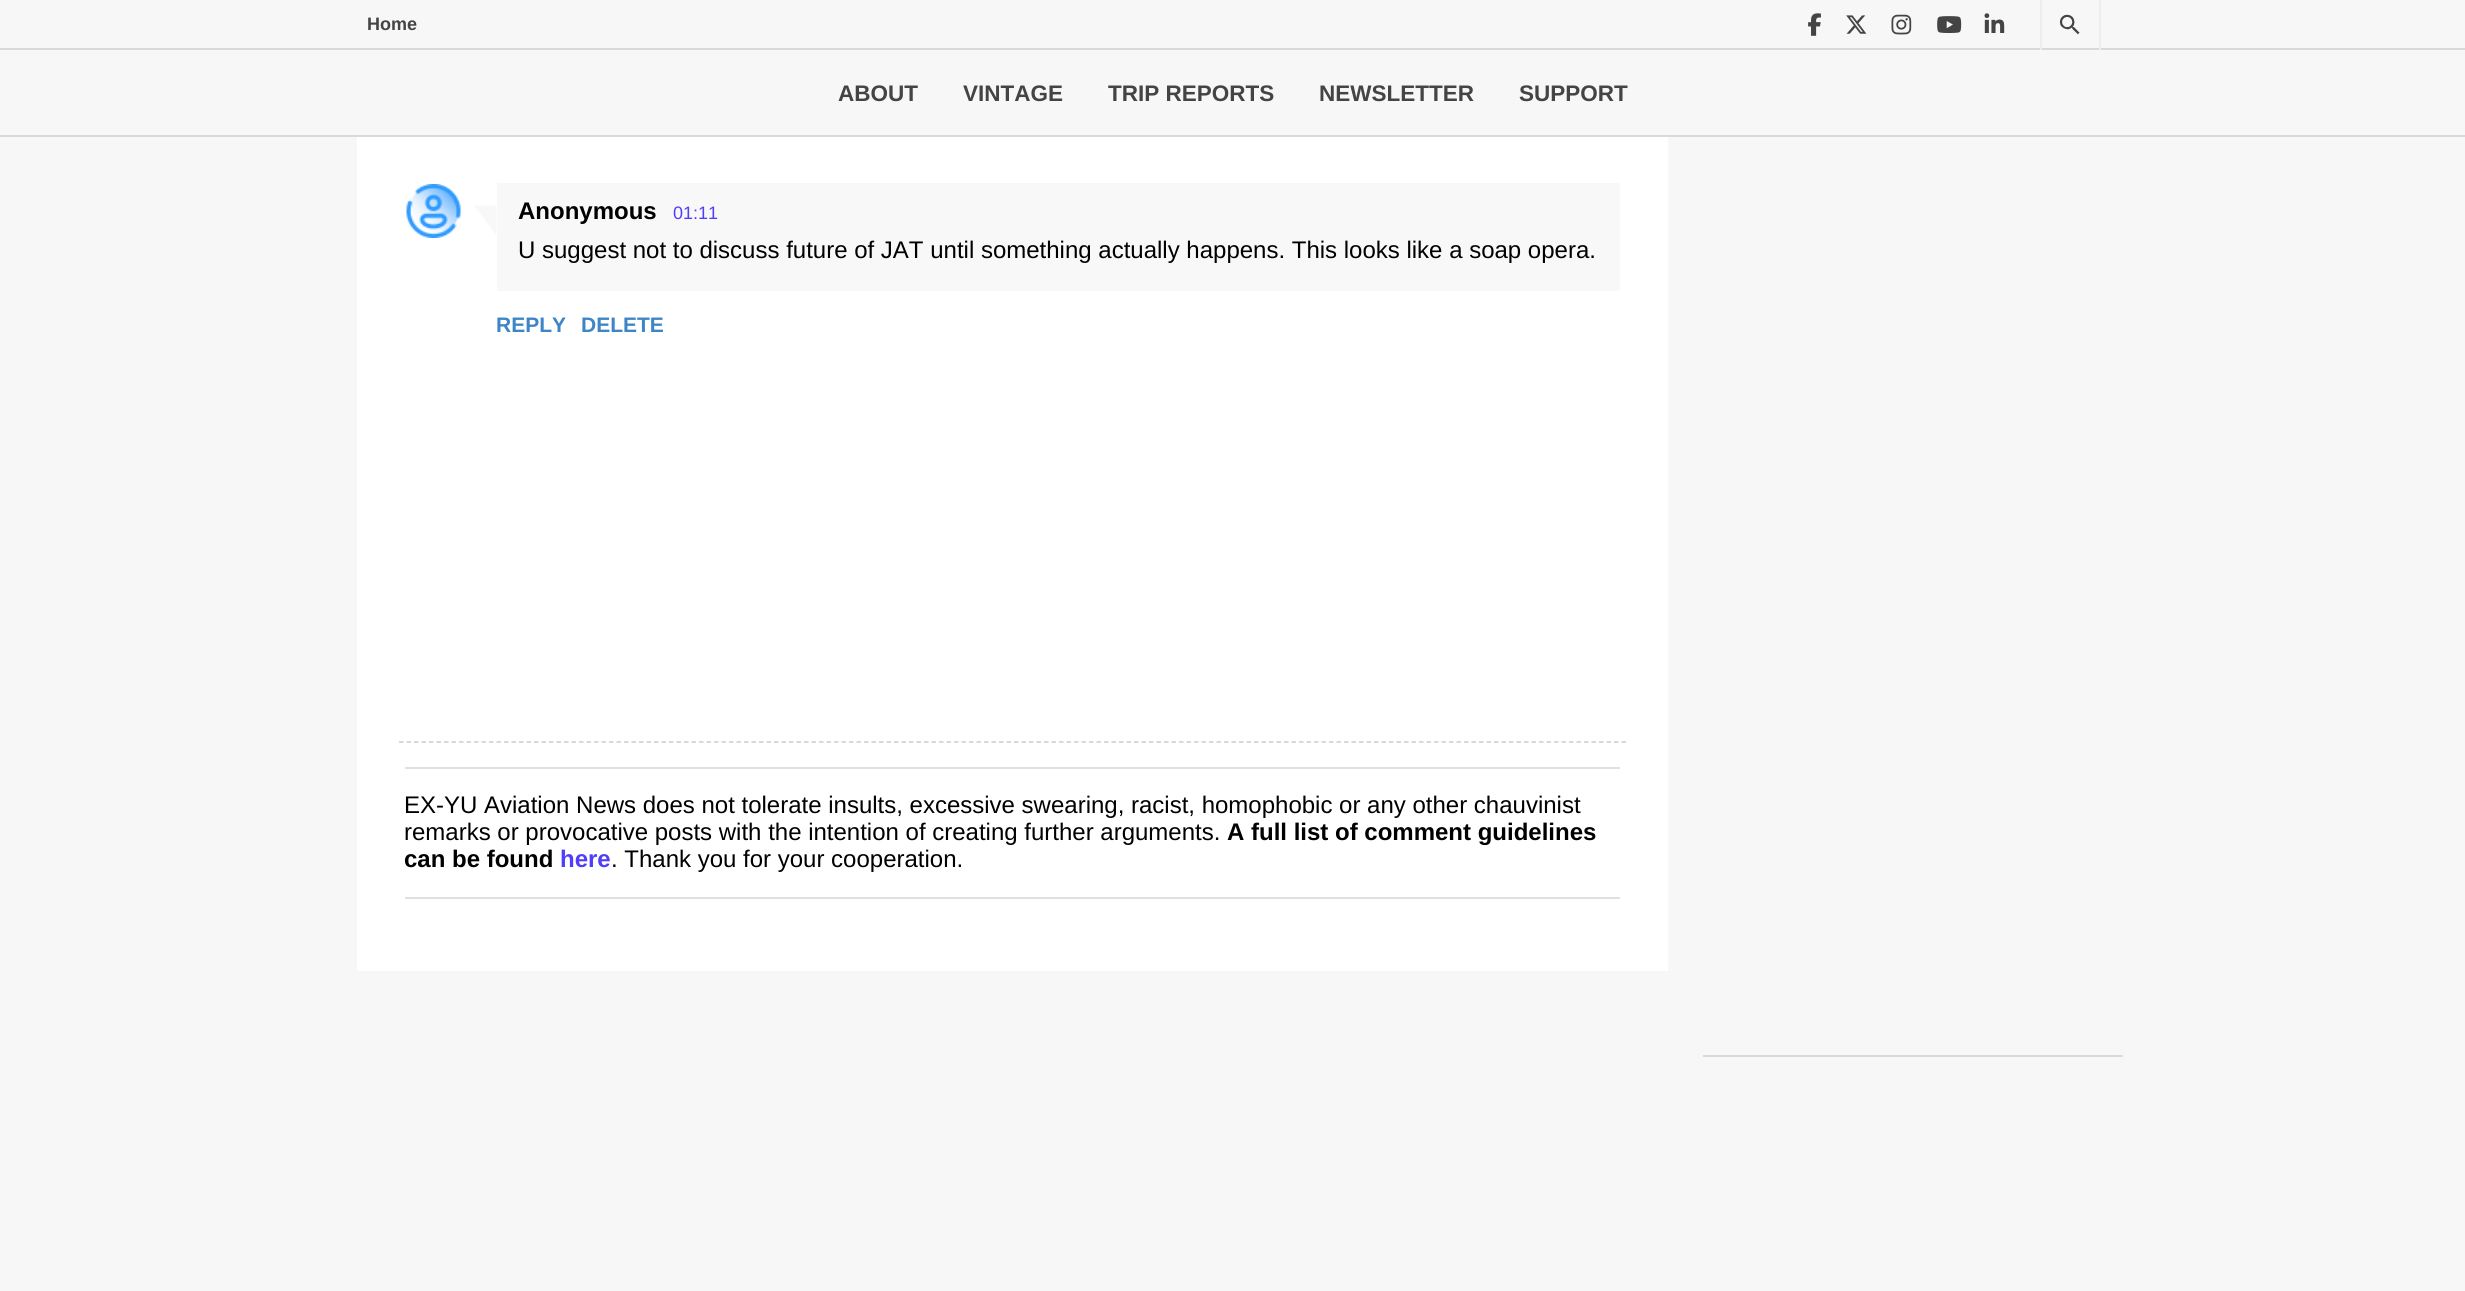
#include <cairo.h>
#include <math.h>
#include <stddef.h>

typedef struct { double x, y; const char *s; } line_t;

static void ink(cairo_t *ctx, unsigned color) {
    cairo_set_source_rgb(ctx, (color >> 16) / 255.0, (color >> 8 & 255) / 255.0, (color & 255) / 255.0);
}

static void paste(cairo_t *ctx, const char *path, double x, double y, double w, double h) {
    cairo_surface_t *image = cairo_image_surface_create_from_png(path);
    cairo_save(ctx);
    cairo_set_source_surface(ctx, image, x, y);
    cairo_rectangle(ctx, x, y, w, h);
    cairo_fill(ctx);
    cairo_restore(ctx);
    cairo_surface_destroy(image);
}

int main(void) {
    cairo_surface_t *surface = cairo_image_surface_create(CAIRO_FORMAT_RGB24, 2465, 1291);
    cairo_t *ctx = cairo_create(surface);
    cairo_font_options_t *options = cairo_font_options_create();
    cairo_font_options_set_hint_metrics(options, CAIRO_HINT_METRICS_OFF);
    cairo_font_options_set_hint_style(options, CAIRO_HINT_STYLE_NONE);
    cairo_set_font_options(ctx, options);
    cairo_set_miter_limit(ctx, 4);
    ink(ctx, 0xF7F7F7);
    cairo_paint(ctx);
    ink(ctx, 0xD9D9D9);
    cairo_rectangle(ctx, 0, 48, 2465, 2);
    cairo_fill(ctx);
    cairo_select_font_face(ctx, "Liberation Sans", CAIRO_FONT_SLANT_NORMAL, CAIRO_FONT_WEIGHT_BOLD);
    cairo_set_font_size(ctx, 18);
    ink(ctx, 0x444444);
    cairo_move_to(ctx, 367, 30);
    cairo_show_text(ctx, "Home");
    paste(ctx, "media/1.png", 1808, 13, 13, 23);
    paste(ctx, "media/2.png", 1846, 15, 21, 19);
    paste(ctx, "media/3.png", 1891, 14, 21, 21);
    paste(ctx, "media/4.png", 1937, 16, 25, 17);
    paste(ctx, "media/5.png", 1984, 13, 21, 20);
    ink(ctx, 0xEEEEEE);
    cairo_rectangle(ctx, 2099, 0, 2, 50);
    cairo_fill(ctx);
    cairo_rectangle(ctx, 2040, 0, 2, 50);
    cairo_fill(ctx);
    paste(ctx, "media/6.png", 2059, 14, 21, 21);
    ink(ctx, 0xD9D9D9);
    cairo_rectangle(ctx, 0, 135, 2465, 2);
    cairo_fill(ctx);
    cairo_set_font_size(ctx, 22.5);
    ink(ctx, 0x444444);
    {
        static const line_t items[] = {
            {838, 101, "ABOUT"},
            {963, 101, "VINTAGE"},
            {1108, 101, "TRIP REPORTS"},
            {1319, 101, "NEWSLETTER"},
            {1519, 101, "SUPPORT"},
        };
        for (size_t i = 0; i < sizeof items / sizeof *items; i++) {
            cairo_move_to(ctx, items[i].x, items[i].y);
            cairo_show_text(ctx, items[i].s);
        }
    }
    ink(ctx, 0xFFFFFF);
    cairo_rectangle(ctx, 357, 137, 1311, 834);
    cairo_fill(ctx);
    paste(ctx, "media/7.png", 406, 184, 55, 54);
    ink(ctx, 0xF8F8F8);
    cairo_new_path(ctx);
    cairo_move_to(ctx, 496.5, 205.5);
    cairo_line_to(ctx, 496.5, 235.5);
    cairo_line_to(ctx, 474, 205.5);
    cairo_close_path(ctx);
    cairo_fill(ctx);
    cairo_rectangle(ctx, 497, 183, 1123, 108);
    cairo_fill(ctx);
    cairo_set_font_size(ctx, 24);
    ink(ctx, 0x000000);
    cairo_move_to(ctx, 518, 219);
    cairo_show_text(ctx, "Anonymous");
    cairo_select_font_face(ctx, "Liberation Sans", CAIRO_FONT_SLANT_NORMAL, CAIRO_FONT_WEIGHT_NORMAL);
    cairo_set_font_size(ctx, 18);
    ink(ctx, 0x503EFA);
    cairo_move_to(ctx, 673, 219);
    cairo_show_text(ctx, "01:11");
    cairo_set_font_size(ctx, 24);
    ink(ctx, 0x000000);
    cairo_move_to(ctx, 518, 258);
    cairo_show_text(ctx, "U suggest not to discuss future of JAT until something actually happens. This looks like a soap opera.");
    cairo_select_font_face(ctx, "Liberation Sans", CAIRO_FONT_SLANT_NORMAL, CAIRO_FONT_WEIGHT_BOLD);
    cairo_set_font_size(ctx, 21);
    ink(ctx, 0x3D85C6);
    cairo_move_to(ctx, 496, 332);
    cairo_show_text(ctx, "REPLY");
    cairo_move_to(ctx, 581, 332);
    cairo_show_text(ctx, "DELETE");
    cairo_new_path(ctx);
    cairo_move_to(ctx, 399, 742);
    cairo_line_to(ctx, 1626, 742);
    ink(ctx, 0xCCCCCC);
    cairo_set_line_width(ctx, 1.5);
    cairo_set_dash(ctx, (double[]){4.5, 3}, 2, 0);
    cairo_stroke(ctx);
    ink(ctx, 0xE0E0E0);
    cairo_rectangle(ctx, 405, 767, 1215, 2);
    cairo_fill(ctx);
    cairo_rectangle(ctx, 405, 897, 1215, 2);
    cairo_fill(ctx);
    cairo_select_font_face(ctx, "Liberation Sans", CAIRO_FONT_SLANT_NORMAL, CAIRO_FONT_WEIGHT_NORMAL);
    cairo_set_font_size(ctx, 24);
    ink(ctx, 0x000000);
    cairo_move_to(ctx, 404, 813);
    cairo_show_text(ctx, "EX-YU Aviation News does not tolerate insults, excessive swearing, racist, homophobic or any other chauvinist");
    cairo_move_to(ctx, 404, 840);
    cairo_show_text(ctx, "remarks or provocative posts with the intention of creating further arguments.");
    cairo_select_font_face(ctx, "Liberation Sans", CAIRO_FONT_SLANT_NORMAL, CAIRO_FONT_WEIGHT_BOLD);
    cairo_move_to(ctx, 1227, 840);
    cairo_show_text(ctx, "A full list of comment guidelines");
    cairo_move_to(ctx, 404, 867);
    cairo_show_text(ctx, "can be found");
    ink(ctx, 0x503EFA);
    cairo_move_to(ctx, 560, 867);
    cairo_show_text(ctx, "here");
    cairo_select_font_face(ctx, "Liberation Sans", CAIRO_FONT_SLANT_NORMAL, CAIRO_FONT_WEIGHT_NORMAL);
    ink(ctx, 0x000000);
    cairo_move_to(ctx, 611, 867);
    cairo_show_text(ctx, ". Thank you for your cooperation.");
    ink(ctx, 0xD9D9D9);
    cairo_rectangle(ctx, 1703, 1055, 420, 2);
    cairo_fill(ctx);
    cairo_surface_write_to_png(surface, "image.png");
    cairo_font_options_destroy(options);
    cairo_destroy(ctx);
    cairo_surface_destroy(surface);
    return 0;
}
